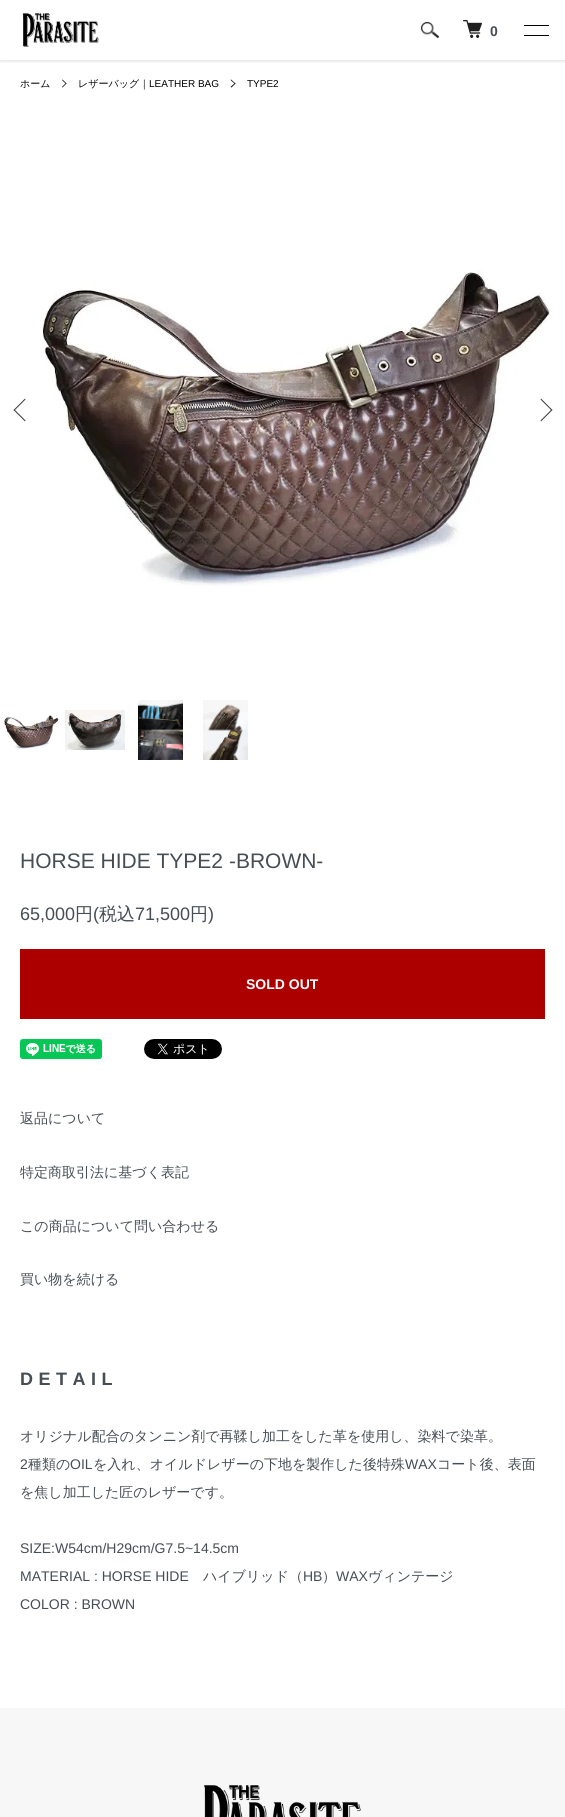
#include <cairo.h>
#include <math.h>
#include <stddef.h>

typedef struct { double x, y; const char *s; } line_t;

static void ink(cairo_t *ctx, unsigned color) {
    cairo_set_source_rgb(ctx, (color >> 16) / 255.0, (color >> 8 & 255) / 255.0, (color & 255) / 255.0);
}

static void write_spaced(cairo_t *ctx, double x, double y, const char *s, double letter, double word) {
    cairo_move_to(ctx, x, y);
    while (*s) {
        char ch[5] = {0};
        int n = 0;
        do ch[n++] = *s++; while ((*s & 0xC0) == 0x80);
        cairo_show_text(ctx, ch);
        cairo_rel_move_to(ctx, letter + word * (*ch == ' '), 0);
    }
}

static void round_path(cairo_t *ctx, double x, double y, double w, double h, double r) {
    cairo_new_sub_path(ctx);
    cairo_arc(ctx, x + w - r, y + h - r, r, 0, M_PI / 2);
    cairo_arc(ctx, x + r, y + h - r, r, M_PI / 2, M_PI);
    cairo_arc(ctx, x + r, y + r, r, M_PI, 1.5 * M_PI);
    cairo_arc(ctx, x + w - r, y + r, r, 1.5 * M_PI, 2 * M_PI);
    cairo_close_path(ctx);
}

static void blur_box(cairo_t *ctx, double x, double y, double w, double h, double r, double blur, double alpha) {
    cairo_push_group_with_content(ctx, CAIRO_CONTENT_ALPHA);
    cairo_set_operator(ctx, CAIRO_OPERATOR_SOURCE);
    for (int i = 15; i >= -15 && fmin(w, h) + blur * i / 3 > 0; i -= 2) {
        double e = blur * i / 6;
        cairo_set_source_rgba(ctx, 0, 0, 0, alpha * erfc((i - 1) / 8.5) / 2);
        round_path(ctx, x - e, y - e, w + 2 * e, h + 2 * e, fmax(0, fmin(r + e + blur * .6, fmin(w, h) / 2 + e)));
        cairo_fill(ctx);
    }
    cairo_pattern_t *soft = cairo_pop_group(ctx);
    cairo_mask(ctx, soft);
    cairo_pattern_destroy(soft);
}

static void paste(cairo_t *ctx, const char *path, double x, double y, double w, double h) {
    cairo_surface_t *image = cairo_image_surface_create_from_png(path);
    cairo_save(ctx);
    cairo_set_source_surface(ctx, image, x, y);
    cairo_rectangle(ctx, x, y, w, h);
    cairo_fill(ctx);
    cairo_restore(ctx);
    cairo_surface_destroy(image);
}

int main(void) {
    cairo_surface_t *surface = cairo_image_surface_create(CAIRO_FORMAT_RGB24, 565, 1817);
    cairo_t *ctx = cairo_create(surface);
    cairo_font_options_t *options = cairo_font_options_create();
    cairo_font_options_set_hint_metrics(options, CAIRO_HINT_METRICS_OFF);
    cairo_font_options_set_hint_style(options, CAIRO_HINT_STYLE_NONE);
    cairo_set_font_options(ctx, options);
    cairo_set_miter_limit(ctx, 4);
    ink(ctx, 0xFFFFFF);
    cairo_paint(ctx);
    cairo_save(ctx);
    cairo_rectangle(ctx, 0, 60, 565, 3);
    cairo_clip(ctx);
    ink(ctx, 0x000000);
    blur_box(ctx, 0, 0, 565, 60, 0, 2.5, 0.2);
    cairo_restore(ctx);
    paste(ctx, "media/1.png", 22, 13, 77, 34);
    paste(ctx, "media/2.png", 421, 22, 18, 16);
    paste(ctx, "media/3.png", 463, 20, 19, 18);
    cairo_select_font_face(ctx, "Liberation Sans", CAIRO_FONT_SLANT_NORMAL, CAIRO_FONT_WEIGHT_BOLD);
    cairo_set_font_size(ctx, 14);
    ink(ctx, 0x464E54);
    cairo_move_to(ctx, 490, 36);
    cairo_show_text(ctx, "0");
    ink(ctx, 0x000000);
    cairo_rectangle(ctx, 524, 25, 25, 1);
    cairo_fill(ctx);
    cairo_rectangle(ctx, 524, 35, 25, 1);
    cairo_fill(ctx);
    cairo_select_font_face(ctx, "WenQuanYi Zen Hei Medium", CAIRO_FONT_SLANT_NORMAL, CAIRO_FONT_WEIGHT_NORMAL);
    cairo_set_font_size(ctx, 10);
    cairo_move_to(ctx, 20, 87);
    cairo_show_text(ctx, "ホーム");
    cairo_new_path(ctx);
    cairo_move_to(ctx, 62, 80);
    cairo_line_to(ctx, 62.5, 79.5);
    cairo_line_to(ctx, 66.5, 83.5);
    cairo_line_to(ctx, 66, 84);
    cairo_close_path(ctx);
    cairo_fill(ctx);
    cairo_new_path(ctx);
    cairo_move_to(ctx, 62, 87);
    cairo_line_to(ctx, 66, 83);
    cairo_line_to(ctx, 66.5, 83.5);
    cairo_line_to(ctx, 62.5, 87.5);
    cairo_close_path(ctx);
    cairo_fill(ctx);
    cairo_move_to(ctx, 78, 87);
    cairo_show_text(ctx, "レザーバッグ｜");
    cairo_select_font_face(ctx, "Liberation Sans", CAIRO_FONT_SLANT_NORMAL, CAIRO_FONT_WEIGHT_NORMAL);
    cairo_move_to(ctx, 149, 87);
    cairo_show_text(ctx, "LEATHER BAG");
    cairo_new_path(ctx);
    cairo_move_to(ctx, 230.5, 80);
    cairo_line_to(ctx, 231, 79.5);
    cairo_line_to(ctx, 235.5, 83.5);
    cairo_line_to(ctx, 235, 84);
    cairo_close_path(ctx);
    cairo_fill(ctx);
    cairo_new_path(ctx);
    cairo_move_to(ctx, 230.5, 87);
    cairo_line_to(ctx, 235, 83);
    cairo_line_to(ctx, 235.5, 83.5);
    cairo_line_to(ctx, 231.5, 87.5);
    cairo_close_path(ctx);
    cairo_fill(ctx);
    cairo_move_to(ctx, 247, 87);
    cairo_show_text(ctx, "TYPE2");
    ink(ctx, 0x404040);
    cairo_new_path(ctx);
    cairo_move_to(ctx, 13.5, 410);
    cairo_line_to(ctx, 25, 398.5);
    cairo_line_to(ctx, 25.5, 399.5);
    cairo_line_to(ctx, 14.5, 410.5);
    cairo_close_path(ctx);
    cairo_fill(ctx);
    cairo_new_path(ctx);
    cairo_move_to(ctx, 13.5, 410);
    cairo_line_to(ctx, 14.5, 409.5);
    cairo_line_to(ctx, 25.5, 420.5);
    cairo_line_to(ctx, 25, 421.5);
    cairo_close_path(ctx);
    cairo_fill(ctx);
    paste(ctx, "media/4.png", 42, 270, 509, 316);
    cairo_new_path(ctx);
    cairo_move_to(ctx, 552.5, 410);
    cairo_line_to(ctx, 541, 421.5);
    cairo_line_to(ctx, 540.5, 420.5);
    cairo_line_to(ctx, 551.5, 409.5);
    cairo_close_path(ctx);
    cairo_fill(ctx);
    cairo_new_path(ctx);
    cairo_move_to(ctx, 552.5, 410);
    cairo_line_to(ctx, 551.5, 410.5);
    cairo_line_to(ctx, 540.5, 399.5);
    cairo_line_to(ctx, 541, 398.5);
    cairo_close_path(ctx);
    cairo_fill(ctx);
    paste(ctx, "media/5.png", 4, 715, 55, 34);
    paste(ctx, "media/6.png", 65, 710, 60, 40);
    paste(ctx, "media/7.png", 138, 700, 45, 60);
    paste(ctx, "media/8.png", 203, 700, 45, 60);
    cairo_set_font_size(ctx, 21);
    ink(ctx, 0x464E54);
    cairo_move_to(ctx, 20, 868);
    cairo_show_text(ctx, "HORSE HIDE TYPE2 -BROWN-");
    cairo_set_font_size(ctx, 18);
    cairo_move_to(ctx, 20, 920);
    cairo_show_text(ctx, "65,000");
    cairo_select_font_face(ctx, "WenQuanYi Zen Hei Medium", CAIRO_FONT_SLANT_NORMAL, CAIRO_FONT_WEIGHT_NORMAL);
    cairo_move_to(ctx, 75, 920);
    cairo_show_text(ctx, "円");
    cairo_select_font_face(ctx, "Liberation Sans", CAIRO_FONT_SLANT_NORMAL, CAIRO_FONT_WEIGHT_NORMAL);
    cairo_move_to(ctx, 93, 920);
    cairo_show_text(ctx, "(");
    cairo_select_font_face(ctx, "WenQuanYi Zen Hei Medium", CAIRO_FONT_SLANT_NORMAL, CAIRO_FONT_WEIGHT_NORMAL);
    cairo_move_to(ctx, 99, 920);
    cairo_show_text(ctx, "税込");
    cairo_select_font_face(ctx, "Liberation Sans", CAIRO_FONT_SLANT_NORMAL, CAIRO_FONT_WEIGHT_NORMAL);
    cairo_move_to(ctx, 135, 920);
    cairo_show_text(ctx, "71,500");
    cairo_select_font_face(ctx, "WenQuanYi Zen Hei Medium", CAIRO_FONT_SLANT_NORMAL, CAIRO_FONT_WEIGHT_NORMAL);
    cairo_move_to(ctx, 190, 920);
    cairo_show_text(ctx, "円");
    cairo_select_font_face(ctx, "Liberation Sans", CAIRO_FONT_SLANT_NORMAL, CAIRO_FONT_WEIGHT_NORMAL);
    cairo_move_to(ctx, 208, 920);
    cairo_show_text(ctx, ")");
    ink(ctx, 0xAC0000);
    cairo_rectangle(ctx, 20, 949, 525, 70);
    cairo_fill(ctx);
    cairo_select_font_face(ctx, "Liberation Sans", CAIRO_FONT_SLANT_NORMAL, CAIRO_FONT_WEIGHT_BOLD);
    cairo_set_font_size(ctx, 14);
    ink(ctx, 0xFFFFFF);
    cairo_move_to(ctx, 246, 989);
    cairo_show_text(ctx, "SOLD OUT");
    paste(ctx, "media/9.png", 20, 1039, 82, 20);
    paste(ctx, "media/10.png", 144, 1039, 78, 20);
    cairo_select_font_face(ctx, "WenQuanYi Zen Hei Medium", CAIRO_FONT_SLANT_NORMAL, CAIRO_FONT_WEIGHT_NORMAL);
    ink(ctx, 0x464E54);
    {
        static const line_t items[] = {
            {20, 1123, "返品について"},
            {20, 1177, "特定商取引法に基づく表記"},
            {20, 1231, "この商品について問い合わせる"},
            {20, 1284, "買い物を続ける"},
        };
        for (size_t i = 0; i < sizeof items / sizeof *items; i++) {
            cairo_move_to(ctx, items[i].x, items[i].y);
            cairo_show_text(ctx, items[i].s);
        }
    }
    cairo_select_font_face(ctx, "Liberation Sans", CAIRO_FONT_SLANT_NORMAL, CAIRO_FONT_WEIGHT_BOLD);
    cairo_set_font_size(ctx, 18);
    write_spaced(ctx, 20, 1385, "DETAIL", 5.5, 0);
    cairo_select_font_face(ctx, "WenQuanYi Zen Hei Medium", CAIRO_FONT_SLANT_NORMAL, CAIRO_FONT_WEIGHT_NORMAL);
    cairo_set_font_size(ctx, 14);
    cairo_move_to(ctx, 20, 1441);
    cairo_show_text(ctx, "オリジナル配合のタンニン剤で再鞣し加工をした革を使用し、染料で染革。");
    cairo_select_font_face(ctx, "Liberation Sans", CAIRO_FONT_SLANT_NORMAL, CAIRO_FONT_WEIGHT_NORMAL);
    cairo_move_to(ctx, 20, 1469);
    cairo_show_text(ctx, "2");
    cairo_select_font_face(ctx, "WenQuanYi Zen Hei Medium", CAIRO_FONT_SLANT_NORMAL, CAIRO_FONT_WEIGHT_NORMAL);
    cairo_move_to(ctx, 28, 1469);
    cairo_show_text(ctx, "種類の");
    cairo_select_font_face(ctx, "Liberation Sans", CAIRO_FONT_SLANT_NORMAL, CAIRO_FONT_WEIGHT_NORMAL);
    cairo_move_to(ctx, 70, 1469);
    cairo_show_text(ctx, "OIL");
    cairo_select_font_face(ctx, "WenQuanYi Zen Hei Medium", CAIRO_FONT_SLANT_NORMAL, CAIRO_FONT_WEIGHT_NORMAL);
    cairo_move_to(ctx, 93, 1469);
    cairo_show_text(ctx, "を入れ、オイルドレザーの下地を製作した後特殊");
    cairo_select_font_face(ctx, "Liberation Sans", CAIRO_FONT_SLANT_NORMAL, CAIRO_FONT_WEIGHT_NORMAL);
    cairo_move_to(ctx, 405, 1469);
    cairo_show_text(ctx, "WAX");
    cairo_select_font_face(ctx, "WenQuanYi Zen Hei Medium", CAIRO_FONT_SLANT_NORMAL, CAIRO_FONT_WEIGHT_NORMAL);
    cairo_move_to(ctx, 437, 1469);
    cairo_show_text(ctx, "コート後、表面");
    cairo_move_to(ctx, 20, 1497);
    cairo_show_text(ctx, "を焦し加工した匠のレザーです。");
    cairo_select_font_face(ctx, "Liberation Sans", CAIRO_FONT_SLANT_NORMAL, CAIRO_FONT_WEIGHT_NORMAL);
    cairo_move_to(ctx, 20, 1553);
    cairo_show_text(ctx, "SIZE:W54cm/H29cm/G7.5~14.5cm");
    cairo_move_to(ctx, 20, 1581);
    cairo_show_text(ctx, "MATERIAL : HORSE HIDE");
    cairo_select_font_face(ctx, "WenQuanYi Zen Hei Medium", CAIRO_FONT_SLANT_NORMAL, CAIRO_FONT_WEIGHT_NORMAL);
    cairo_move_to(ctx, 203, 1581);
    cairo_show_text(ctx, "ハイブリッド（");
    cairo_select_font_face(ctx, "Liberation Sans", CAIRO_FONT_SLANT_NORMAL, CAIRO_FONT_WEIGHT_NORMAL);
    cairo_move_to(ctx, 303, 1581);
    cairo_show_text(ctx, "HB");
    cairo_select_font_face(ctx, "WenQuanYi Zen Hei Medium", CAIRO_FONT_SLANT_NORMAL, CAIRO_FONT_WEIGHT_NORMAL);
    cairo_move_to(ctx, 322, 1581);
    cairo_show_text(ctx, "）");
    cairo_select_font_face(ctx, "Liberation Sans", CAIRO_FONT_SLANT_NORMAL, CAIRO_FONT_WEIGHT_NORMAL);
    cairo_move_to(ctx, 336, 1581);
    cairo_show_text(ctx, "WAX");
    cairo_select_font_face(ctx, "WenQuanYi Zen Hei Medium", CAIRO_FONT_SLANT_NORMAL, CAIRO_FONT_WEIGHT_NORMAL);
    cairo_move_to(ctx, 368, 1581);
    cairo_show_text(ctx, "ヴィンテージ");
    cairo_select_font_face(ctx, "Liberation Sans", CAIRO_FONT_SLANT_NORMAL, CAIRO_FONT_WEIGHT_NORMAL);
    cairo_move_to(ctx, 20, 1609);
    cairo_show_text(ctx, "COLOR : BROWN");
    ink(ctx, 0xF7F7F7);
    cairo_rectangle(ctx, 0, 1708, 565, 109);
    cairo_fill(ctx);
    paste(ctx, "media/11.png", 204, 1785, 157, 32);
    cairo_surface_write_to_png(surface, "image.png");
    cairo_font_options_destroy(options);
    cairo_destroy(ctx);
    cairo_surface_destroy(surface);
    return 0;
}
